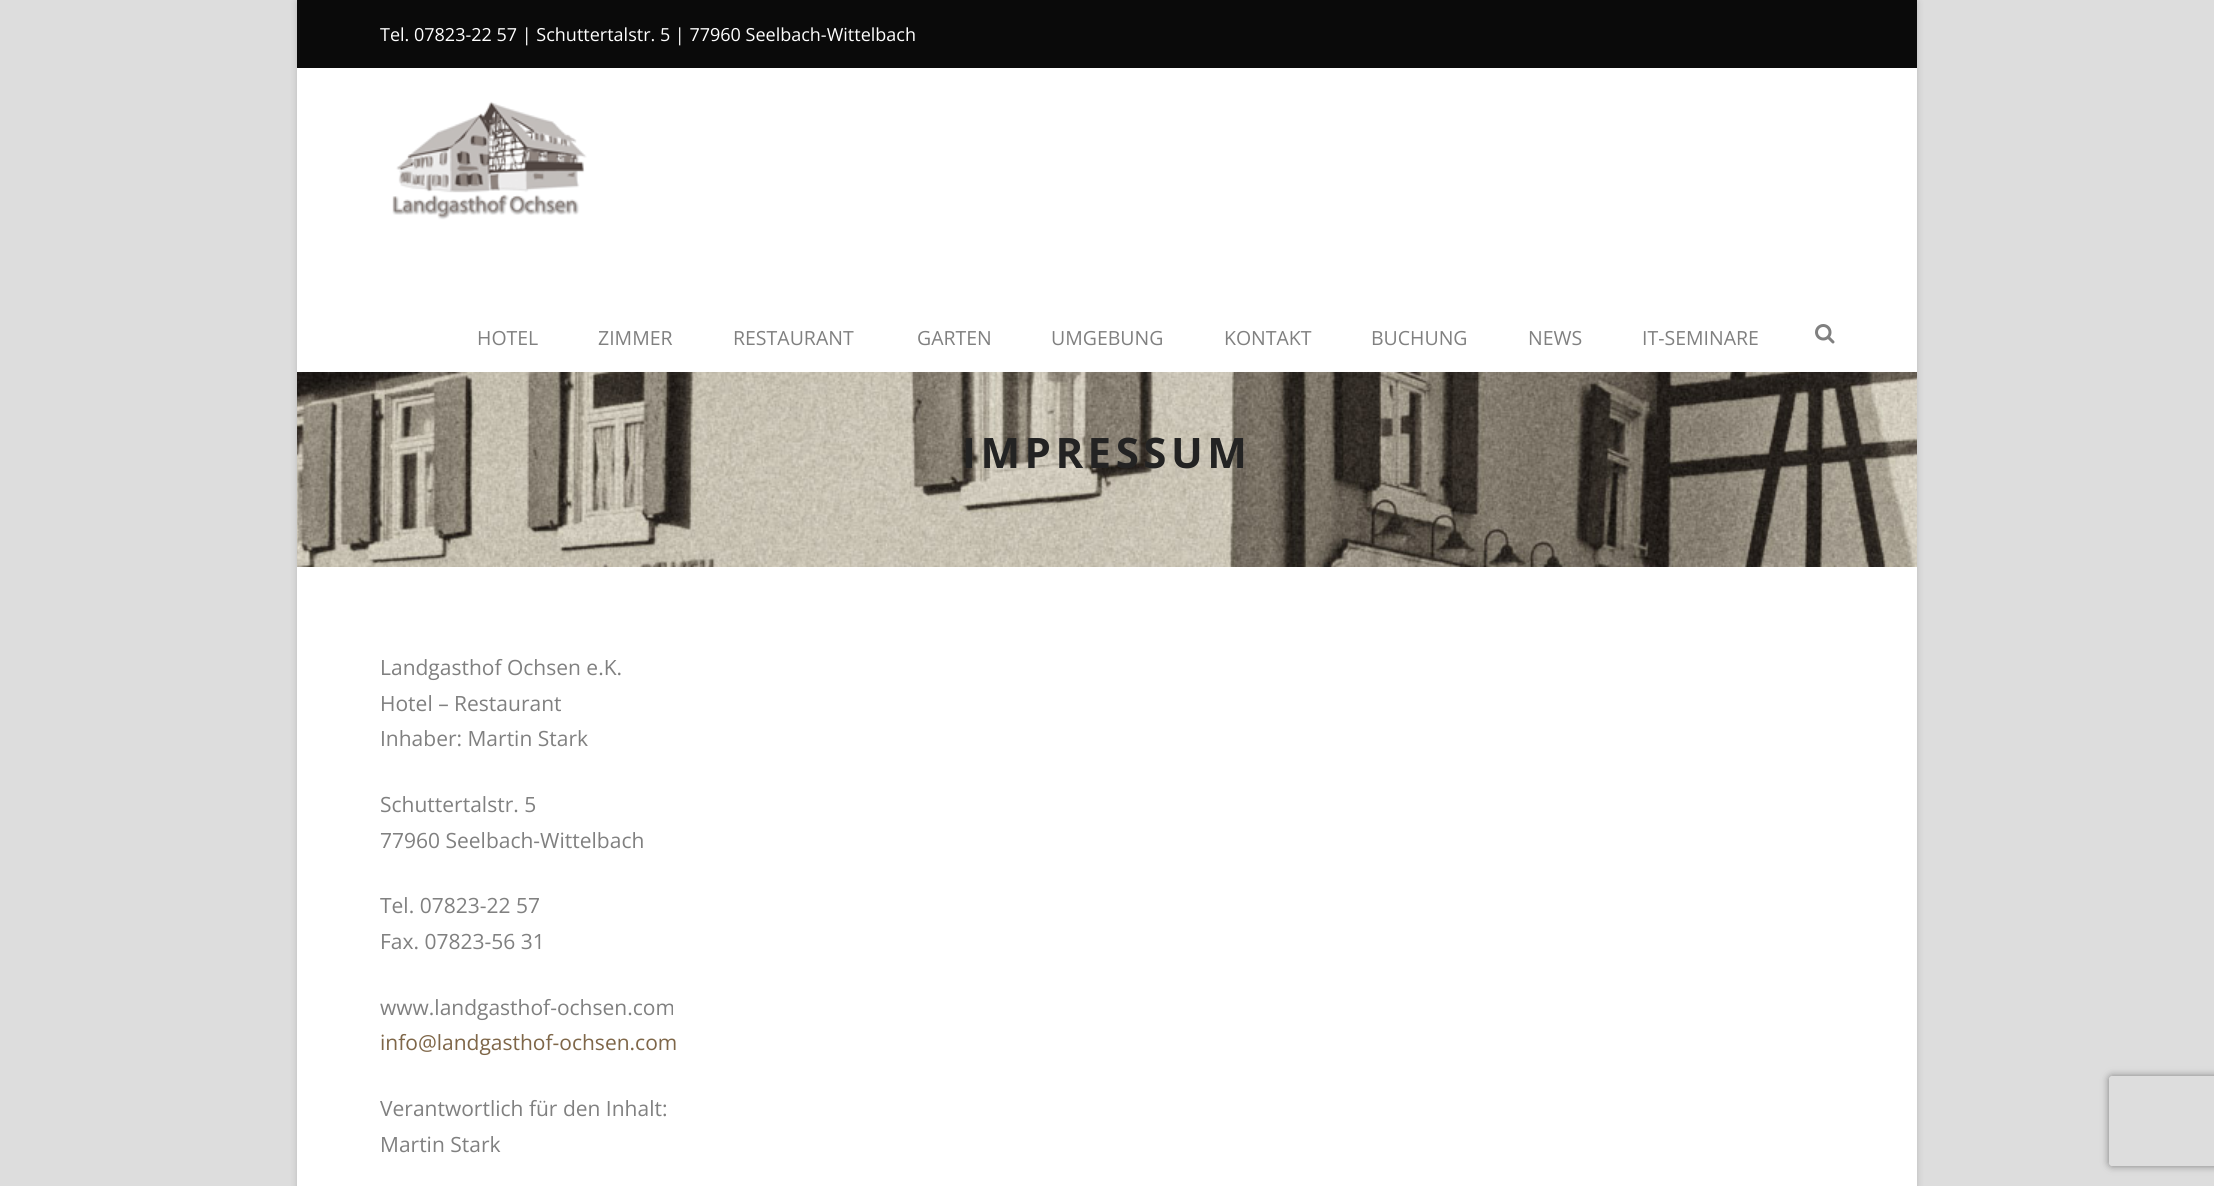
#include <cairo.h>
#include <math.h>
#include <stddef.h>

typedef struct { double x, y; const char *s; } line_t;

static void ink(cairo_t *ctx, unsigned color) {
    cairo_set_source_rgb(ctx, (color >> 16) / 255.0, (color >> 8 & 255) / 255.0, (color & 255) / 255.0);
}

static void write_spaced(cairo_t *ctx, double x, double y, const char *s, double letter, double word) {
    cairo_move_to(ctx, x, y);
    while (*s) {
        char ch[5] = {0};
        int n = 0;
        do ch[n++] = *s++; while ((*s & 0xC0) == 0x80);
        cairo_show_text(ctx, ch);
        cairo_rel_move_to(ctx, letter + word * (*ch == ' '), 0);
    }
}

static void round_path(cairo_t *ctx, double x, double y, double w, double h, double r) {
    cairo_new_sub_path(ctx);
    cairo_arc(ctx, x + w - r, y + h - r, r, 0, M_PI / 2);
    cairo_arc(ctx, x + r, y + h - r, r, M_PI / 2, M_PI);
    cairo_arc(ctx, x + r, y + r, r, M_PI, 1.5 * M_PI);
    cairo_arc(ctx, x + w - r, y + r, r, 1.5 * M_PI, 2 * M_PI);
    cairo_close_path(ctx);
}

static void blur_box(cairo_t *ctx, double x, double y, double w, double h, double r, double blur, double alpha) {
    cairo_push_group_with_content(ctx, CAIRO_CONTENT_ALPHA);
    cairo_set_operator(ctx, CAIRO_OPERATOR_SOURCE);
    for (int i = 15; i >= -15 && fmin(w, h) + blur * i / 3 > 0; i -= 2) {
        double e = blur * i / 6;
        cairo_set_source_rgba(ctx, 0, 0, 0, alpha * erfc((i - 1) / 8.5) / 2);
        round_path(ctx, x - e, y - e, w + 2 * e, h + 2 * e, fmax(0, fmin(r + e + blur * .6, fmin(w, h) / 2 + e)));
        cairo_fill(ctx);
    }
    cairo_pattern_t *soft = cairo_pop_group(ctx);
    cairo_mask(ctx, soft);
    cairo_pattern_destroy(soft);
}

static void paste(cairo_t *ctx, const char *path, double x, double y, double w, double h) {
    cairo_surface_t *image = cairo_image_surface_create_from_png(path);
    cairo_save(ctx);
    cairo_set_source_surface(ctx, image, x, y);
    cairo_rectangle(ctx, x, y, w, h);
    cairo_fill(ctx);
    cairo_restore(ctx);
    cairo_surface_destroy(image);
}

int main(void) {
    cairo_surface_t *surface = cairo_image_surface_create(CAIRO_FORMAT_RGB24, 2214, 1186);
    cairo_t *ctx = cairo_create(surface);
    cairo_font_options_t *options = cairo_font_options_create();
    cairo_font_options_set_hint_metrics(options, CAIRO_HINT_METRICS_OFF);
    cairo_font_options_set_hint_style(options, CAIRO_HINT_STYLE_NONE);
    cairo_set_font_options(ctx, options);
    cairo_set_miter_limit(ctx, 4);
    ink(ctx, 0xDDDDDD);
    cairo_paint(ctx);
    ink(ctx, 0x000000);
    blur_box(ctx, 297, 2, 1620, 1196, 0, 4, 0.15);
    ink(ctx, 0xFFFFFF);
    cairo_rectangle(ctx, 297, 68, 1620, 1118);
    cairo_fill(ctx);
    ink(ctx, 0x0A0A0A);
    cairo_rectangle(ctx, 297, 0, 1620, 68);
    cairo_fill(ctx);
    cairo_select_font_face(ctx, "Open Sans", CAIRO_FONT_SLANT_NORMAL, CAIRO_FONT_WEIGHT_NORMAL);
    cairo_set_font_size(ctx, 18);
    ink(ctx, 0xFFFFFF);
    cairo_move_to(ctx, 380, 41);
    cairo_show_text(ctx, "Tel. 07823-22 57 | Schuttertalstr. 5 | 77960 Seelbach-Wittelbach");
    paste(ctx, "media/1.png", 392, 101, 195, 119);
    cairo_set_font_size(ctx, 19.5);
    ink(ctx, 0x808080);
    {
        static const line_t items[] = {
            {477, 345, "HOTEL"},
            {598, 345, "ZIMMER"},
            {733, 345, "RESTAURANT"},
            {917, 345, "GARTEN"},
            {1051, 345, "UMGEBUNG"},
            {1224, 345, "KONTAKT"},
            {1371, 345, "BUCHUNG"},
            {1528, 345, "NEWS"},
            {1642, 345, "IT-SEMINARE"},
        };
        for (size_t i = 0; i < sizeof items / sizeof *items; i++) {
            cairo_move_to(ctx, items[i].x, items[i].y);
            cairo_show_text(ctx, items[i].s);
        }
    }
    paste(ctx, "media/2.png", 1815, 324, 20, 20);
    paste(ctx, "media/3.png", 297, 372, 1620, 195);
    cairo_select_font_face(ctx, "Open Sans", CAIRO_FONT_SLANT_NORMAL, CAIRO_FONT_WEIGHT_BOLD);
    cairo_set_font_size(ctx, 42);
    ink(ctx, 0x232323);
    write_spaced(ctx, 962, 468, "IMPRESSUM", 4.5, 0);
    cairo_select_font_face(ctx, "Open Sans", CAIRO_FONT_SLANT_NORMAL, CAIRO_FONT_WEIGHT_NORMAL);
    cairo_set_font_size(ctx, 21);
    ink(ctx, 0x808080);
    {
        static const line_t items[] = {
            {380, 675, "Landgasthof Ochsen e.K."},
            {380, 711, "Hotel – Restaurant"},
            {380, 746, "Inhaber: Martin Stark"},
            {380, 812, "Schuttertalstr. 5"},
            {380, 848, "77960 Seelbach-Wittelbach"},
            {380, 913, "Tel. 07823-22 57"},
            {380, 949, "Fax. 07823-56 31"},
            {380, 1015, "www.landgasthof-ochsen.com"},
        };
        for (size_t i = 0; i < sizeof items / sizeof *items; i++) {
            cairo_move_to(ctx, items[i].x, items[i].y);
            cairo_show_text(ctx, items[i].s);
        }
    }
    ink(ctx, 0x7E6648);
    cairo_move_to(ctx, 380, 1050);
    cairo_show_text(ctx, "info@landgasthof-ochsen.com");
    ink(ctx, 0x808080);
    cairo_move_to(ctx, 380, 1116);
    cairo_show_text(ctx, "Verantwortlich für den Inhalt:");
    cairo_move_to(ctx, 380, 1152);
    cairo_show_text(ctx, "Martin Stark");
    cairo_save(ctx);
    cairo_set_fill_rule(ctx, CAIRO_FILL_RULE_EVEN_ODD);
    cairo_new_path(ctx);
    cairo_move_to(ctx, 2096, 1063);
    cairo_line_to(ctx, 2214, 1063);
    cairo_line_to(ctx, 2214, 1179);
    cairo_line_to(ctx, 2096, 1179);
    cairo_close_path(ctx);
    cairo_move_to(ctx, 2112, 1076);
    cairo_line_to(ctx, 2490, 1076);
    cairo_curve_to(ctx, 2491.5, 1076, 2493, 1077.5, 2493, 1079);
    cairo_line_to(ctx, 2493, 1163);
    cairo_curve_to(ctx, 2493, 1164.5, 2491.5, 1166, 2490, 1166);
    cairo_line_to(ctx, 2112, 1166);
    cairo_curve_to(ctx, 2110.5, 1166, 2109, 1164.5, 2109, 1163);
    cairo_line_to(ctx, 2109, 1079);
    cairo_curve_to(ctx, 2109, 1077.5, 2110.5, 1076, 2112, 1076);
    cairo_close_path(ctx);
    cairo_clip(ctx);
    ink(ctx, 0x808080);
    blur_box(ctx, 2109, 1076, 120, 90, 3, 4, 1);
    cairo_restore(ctx);
    cairo_surface_write_to_png(surface, "image.png");
    cairo_font_options_destroy(options);
    cairo_destroy(ctx);
    cairo_surface_destroy(surface);
    return 0;
}
